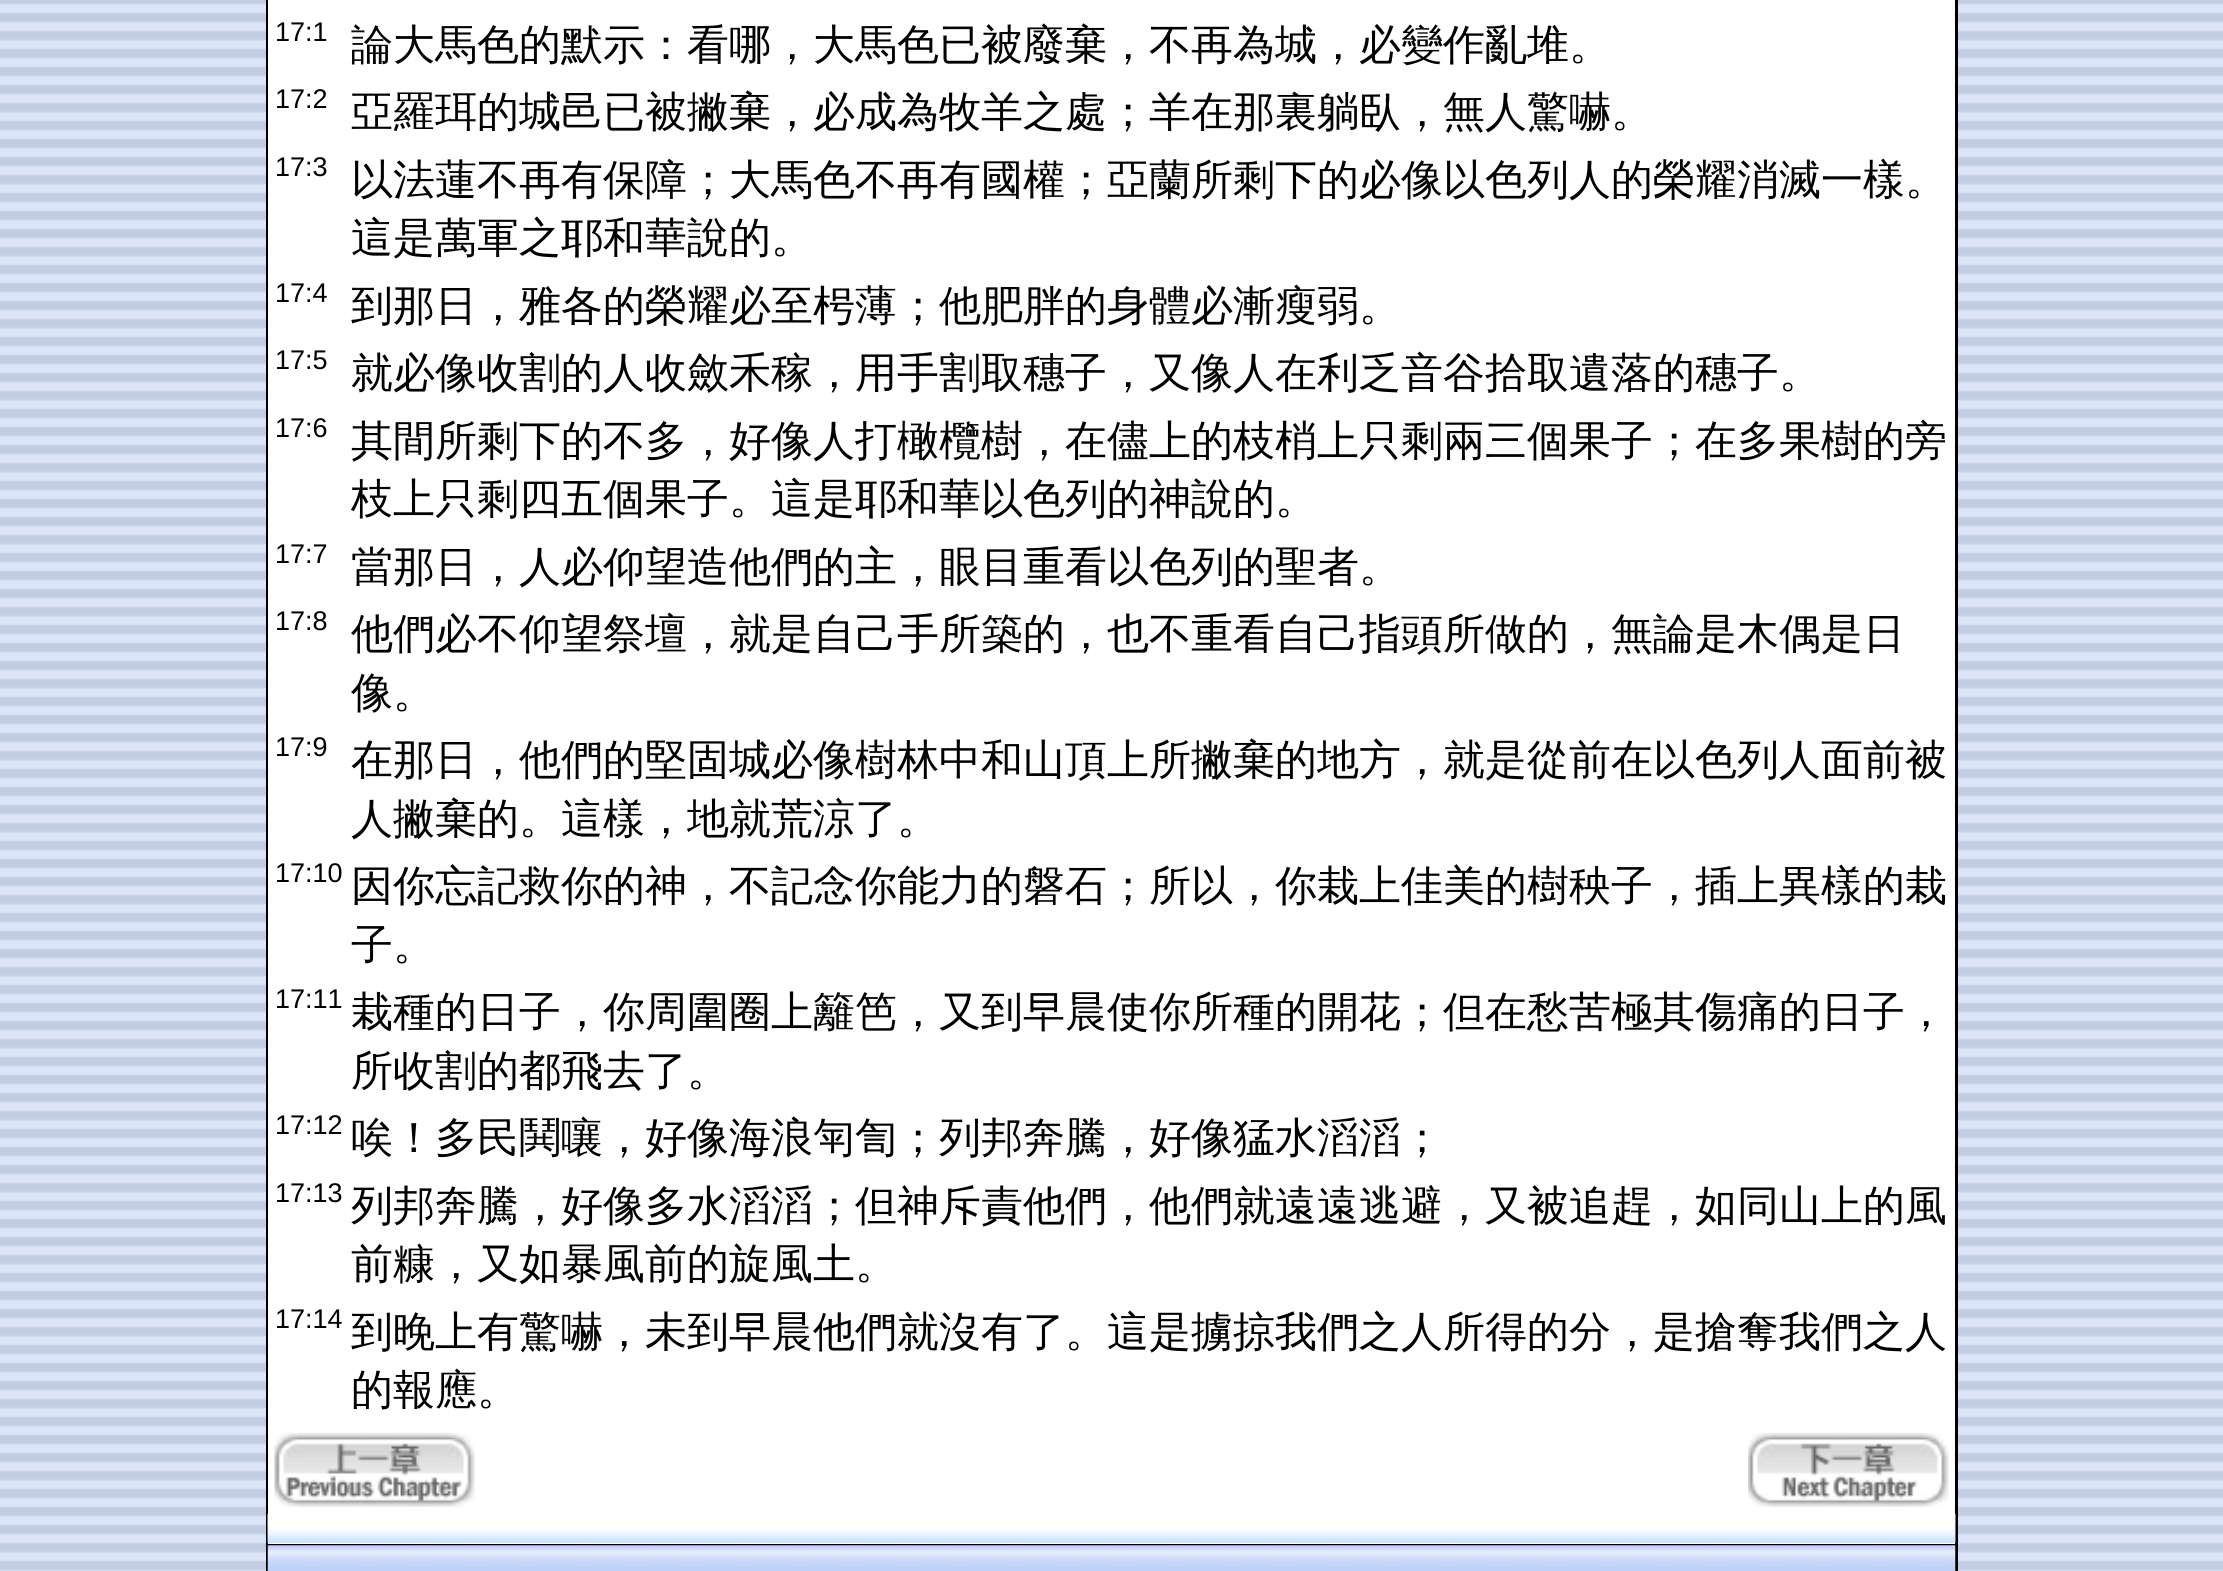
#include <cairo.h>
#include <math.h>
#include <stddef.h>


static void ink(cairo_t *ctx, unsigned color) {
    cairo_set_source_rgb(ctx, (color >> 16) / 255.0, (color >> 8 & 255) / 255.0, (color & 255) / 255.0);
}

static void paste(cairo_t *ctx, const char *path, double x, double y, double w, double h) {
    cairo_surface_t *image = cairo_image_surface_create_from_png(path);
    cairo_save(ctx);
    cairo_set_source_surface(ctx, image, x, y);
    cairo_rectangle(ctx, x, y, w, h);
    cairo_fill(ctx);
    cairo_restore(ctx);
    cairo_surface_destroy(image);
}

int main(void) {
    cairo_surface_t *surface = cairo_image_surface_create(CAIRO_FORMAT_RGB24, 2223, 1571);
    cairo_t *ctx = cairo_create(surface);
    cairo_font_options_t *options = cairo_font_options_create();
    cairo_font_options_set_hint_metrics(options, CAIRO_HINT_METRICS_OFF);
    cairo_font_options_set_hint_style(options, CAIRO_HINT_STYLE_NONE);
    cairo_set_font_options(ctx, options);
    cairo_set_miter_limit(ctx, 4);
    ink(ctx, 0xFFFFFF);
    cairo_paint(ctx);
    paste(ctx, "media/1.png", 0, 0, 2223, 1571);
    ink(ctx, 0x000000);
    cairo_rectangle(ctx, 266, 0, 1692, 1571);
    cairo_fill(ctx);
    ink(ctx, 0xFFFFFF);
    cairo_rectangle(ctx, 268, 0, 1687, 1514);
    cairo_fill(ctx);
    cairo_select_font_face(ctx, "Liberation Sans", CAIRO_FONT_SLANT_NORMAL, CAIRO_FONT_WEIGHT_NORMAL);
    cairo_set_font_size(ctx, 27);
    ink(ctx, 0x000000);
    cairo_move_to(ctx, 275, 41);
    cairo_show_text(ctx, "17:1");
    cairo_select_font_face(ctx, "WenQuanYi Zen Hei Medium", CAIRO_FONT_SLANT_NORMAL, CAIRO_FONT_WEIGHT_NORMAL);
    cairo_set_font_size(ctx, 42);
    cairo_move_to(ctx, 351, 59);
    cairo_show_text(ctx, "論大馬色的默示：看哪，大馬色已被廢棄，不再為城，必變作亂堆。");
    cairo_select_font_face(ctx, "Liberation Sans", CAIRO_FONT_SLANT_NORMAL, CAIRO_FONT_WEIGHT_NORMAL);
    cairo_set_font_size(ctx, 27);
    cairo_move_to(ctx, 275, 108);
    cairo_show_text(ctx, "17:2");
    cairo_select_font_face(ctx, "WenQuanYi Zen Hei Medium", CAIRO_FONT_SLANT_NORMAL, CAIRO_FONT_WEIGHT_NORMAL);
    cairo_set_font_size(ctx, 42);
    cairo_move_to(ctx, 351, 126);
    cairo_show_text(ctx, "亞羅珥的城邑已被撇棄，必成為牧羊之處；羊在那裏躺臥，無人驚嚇。");
    cairo_select_font_face(ctx, "Liberation Sans", CAIRO_FONT_SLANT_NORMAL, CAIRO_FONT_WEIGHT_NORMAL);
    cairo_set_font_size(ctx, 27);
    cairo_move_to(ctx, 275, 176);
    cairo_show_text(ctx, "17:3");
    cairo_select_font_face(ctx, "WenQuanYi Zen Hei Medium", CAIRO_FONT_SLANT_NORMAL, CAIRO_FONT_WEIGHT_NORMAL);
    cairo_set_font_size(ctx, 42);
    cairo_move_to(ctx, 351, 194);
    cairo_show_text(ctx, "以法蓮不再有保障；大馬色不再有國權；亞蘭所剩下的必像以色列人的榮耀消滅一樣。");
    cairo_move_to(ctx, 351, 252);
    cairo_show_text(ctx, "這是萬軍之耶和華說的。");
    cairo_select_font_face(ctx, "Liberation Sans", CAIRO_FONT_SLANT_NORMAL, CAIRO_FONT_WEIGHT_NORMAL);
    cairo_set_font_size(ctx, 27);
    cairo_move_to(ctx, 275, 302);
    cairo_show_text(ctx, "17:4");
    cairo_select_font_face(ctx, "WenQuanYi Zen Hei Medium", CAIRO_FONT_SLANT_NORMAL, CAIRO_FONT_WEIGHT_NORMAL);
    cairo_set_font_size(ctx, 42);
    cairo_move_to(ctx, 351, 320);
    cairo_show_text(ctx, "到那日，雅各的榮耀必至枵薄；他肥胖的身體必漸瘦弱。");
    cairo_select_font_face(ctx, "Liberation Sans", CAIRO_FONT_SLANT_NORMAL, CAIRO_FONT_WEIGHT_NORMAL);
    cairo_set_font_size(ctx, 27);
    cairo_move_to(ctx, 275, 369);
    cairo_show_text(ctx, "17:5");
    cairo_select_font_face(ctx, "WenQuanYi Zen Hei Medium", CAIRO_FONT_SLANT_NORMAL, CAIRO_FONT_WEIGHT_NORMAL);
    cairo_set_font_size(ctx, 42);
    cairo_move_to(ctx, 351, 387);
    cairo_show_text(ctx, "就必像收割的人收斂禾稼，用手割取穗子，又像人在利乏音谷拾取遺落的穗子。");
    cairo_select_font_face(ctx, "Liberation Sans", CAIRO_FONT_SLANT_NORMAL, CAIRO_FONT_WEIGHT_NORMAL);
    cairo_set_font_size(ctx, 27);
    cairo_move_to(ctx, 275, 437);
    cairo_show_text(ctx, "17:6");
    cairo_select_font_face(ctx, "WenQuanYi Zen Hei Medium", CAIRO_FONT_SLANT_NORMAL, CAIRO_FONT_WEIGHT_NORMAL);
    cairo_set_font_size(ctx, 42);
    cairo_move_to(ctx, 351, 455);
    cairo_show_text(ctx, "其間所剩下的不多，好像人打橄欖樹，在儘上的枝梢上只剩兩三個果子；在多果樹的旁");
    cairo_move_to(ctx, 351, 513);
    cairo_show_text(ctx, "枝上只剩四五個果子。這是耶和華以色列的神說的。");
    cairo_select_font_face(ctx, "Liberation Sans", CAIRO_FONT_SLANT_NORMAL, CAIRO_FONT_WEIGHT_NORMAL);
    cairo_set_font_size(ctx, 27);
    cairo_move_to(ctx, 275, 563);
    cairo_show_text(ctx, "17:7");
    cairo_select_font_face(ctx, "WenQuanYi Zen Hei Medium", CAIRO_FONT_SLANT_NORMAL, CAIRO_FONT_WEIGHT_NORMAL);
    cairo_set_font_size(ctx, 42);
    cairo_move_to(ctx, 351, 581);
    cairo_show_text(ctx, "當那日，人必仰望造他們的主，眼目重看以色列的聖者。");
    cairo_select_font_face(ctx, "Liberation Sans", CAIRO_FONT_SLANT_NORMAL, CAIRO_FONT_WEIGHT_NORMAL);
    cairo_set_font_size(ctx, 27);
    cairo_move_to(ctx, 275, 630);
    cairo_show_text(ctx, "17:8");
    cairo_select_font_face(ctx, "WenQuanYi Zen Hei Medium", CAIRO_FONT_SLANT_NORMAL, CAIRO_FONT_WEIGHT_NORMAL);
    cairo_set_font_size(ctx, 42);
    cairo_move_to(ctx, 351, 648);
    cairo_show_text(ctx, "他們必不仰望祭壇，就是自己手所築的，也不重看自己指頭所做的，無論是木偶是日");
    cairo_move_to(ctx, 351, 707);
    cairo_show_text(ctx, "像。");
    cairo_select_font_face(ctx, "Liberation Sans", CAIRO_FONT_SLANT_NORMAL, CAIRO_FONT_WEIGHT_NORMAL);
    cairo_set_font_size(ctx, 27);
    cairo_move_to(ctx, 275, 756);
    cairo_show_text(ctx, "17:9");
    cairo_select_font_face(ctx, "WenQuanYi Zen Hei Medium", CAIRO_FONT_SLANT_NORMAL, CAIRO_FONT_WEIGHT_NORMAL);
    cairo_set_font_size(ctx, 42);
    cairo_move_to(ctx, 351, 774);
    cairo_show_text(ctx, "在那日，他們的堅固城必像樹林中和山頂上所撇棄的地方，就是從前在以色列人面前被");
    cairo_move_to(ctx, 351, 833);
    cairo_show_text(ctx, "人撇棄的。這樣，地就荒涼了。");
    cairo_select_font_face(ctx, "Liberation Sans", CAIRO_FONT_SLANT_NORMAL, CAIRO_FONT_WEIGHT_NORMAL);
    cairo_set_font_size(ctx, 27);
    cairo_move_to(ctx, 275, 882);
    cairo_show_text(ctx, "17:10");
    cairo_select_font_face(ctx, "WenQuanYi Zen Hei Medium", CAIRO_FONT_SLANT_NORMAL, CAIRO_FONT_WEIGHT_NORMAL);
    cairo_set_font_size(ctx, 42);
    cairo_move_to(ctx, 351, 900);
    cairo_show_text(ctx, "因你忘記救你的神，不記念你能力的磐石；所以，你栽上佳美的樹秧子，插上異樣的栽");
    cairo_move_to(ctx, 351, 959);
    cairo_show_text(ctx, "子。");
    cairo_select_font_face(ctx, "Liberation Sans", CAIRO_FONT_SLANT_NORMAL, CAIRO_FONT_WEIGHT_NORMAL);
    cairo_set_font_size(ctx, 27);
    cairo_move_to(ctx, 275, 1008);
    cairo_show_text(ctx, "17:11");
    cairo_select_font_face(ctx, "WenQuanYi Zen Hei Medium", CAIRO_FONT_SLANT_NORMAL, CAIRO_FONT_WEIGHT_NORMAL);
    cairo_set_font_size(ctx, 42);
    cairo_move_to(ctx, 351, 1026);
    cairo_show_text(ctx, "栽種的日子，你周圍圈上籬笆，又到早晨使你所種的開花；但在愁苦極其傷痛的日子，");
    cairo_move_to(ctx, 351, 1085);
    cairo_show_text(ctx, "所收割的都飛去了。");
    cairo_select_font_face(ctx, "Liberation Sans", CAIRO_FONT_SLANT_NORMAL, CAIRO_FONT_WEIGHT_NORMAL);
    cairo_set_font_size(ctx, 27);
    cairo_move_to(ctx, 275, 1134);
    cairo_show_text(ctx, "17:12");
    cairo_select_font_face(ctx, "WenQuanYi Zen Hei Medium", CAIRO_FONT_SLANT_NORMAL, CAIRO_FONT_WEIGHT_NORMAL);
    cairo_set_font_size(ctx, 42);
    cairo_move_to(ctx, 351, 1152);
    cairo_show_text(ctx, "唉！多民鬨嚷，好像海浪匉訇；列邦奔騰，好像猛水滔滔；");
    cairo_select_font_face(ctx, "Liberation Sans", CAIRO_FONT_SLANT_NORMAL, CAIRO_FONT_WEIGHT_NORMAL);
    cairo_set_font_size(ctx, 27);
    cairo_move_to(ctx, 275, 1202);
    cairo_show_text(ctx, "17:13");
    cairo_select_font_face(ctx, "WenQuanYi Zen Hei Medium", CAIRO_FONT_SLANT_NORMAL, CAIRO_FONT_WEIGHT_NORMAL);
    cairo_set_font_size(ctx, 42);
    cairo_move_to(ctx, 351, 1220);
    cairo_show_text(ctx, "列邦奔騰，好像多水滔滔；但神斥責他們，他們就遠遠逃避，又被追趕，如同山上的風");
    cairo_move_to(ctx, 351, 1278);
    cairo_show_text(ctx, "前糠，又如暴風前的旋風土。");
    cairo_select_font_face(ctx, "Liberation Sans", CAIRO_FONT_SLANT_NORMAL, CAIRO_FONT_WEIGHT_NORMAL);
    cairo_set_font_size(ctx, 27);
    cairo_move_to(ctx, 275, 1328);
    cairo_show_text(ctx, "17:14");
    cairo_select_font_face(ctx, "WenQuanYi Zen Hei Medium", CAIRO_FONT_SLANT_NORMAL, CAIRO_FONT_WEIGHT_NORMAL);
    cairo_set_font_size(ctx, 42);
    cairo_move_to(ctx, 351, 1346);
    cairo_show_text(ctx, "到晚上有驚嚇，未到早晨他們就沒有了。這是擄掠我們之人所得的分，是搶奪我們之人");
    cairo_move_to(ctx, 351, 1404);
    cairo_show_text(ctx, "的報應。");
    paste(ctx, "media/2.png", 274, 1432, 201, 75);
    paste(ctx, "media/3.png", 1748, 1432, 201, 75);
    ink(ctx, 0xFFFFFF);
    cairo_rectangle(ctx, 268, 1543, 1687, 1);
    cairo_fill(ctx);
    paste(ctx, "media/4.png", 267, 1513, 1689, 30);
    paste(ctx, "media/5.png", 267, 1545, 1689, 26);
    cairo_surface_write_to_png(surface, "image.png");
    cairo_font_options_destroy(options);
    cairo_destroy(ctx);
    cairo_surface_destroy(surface);
    return 0;
}
